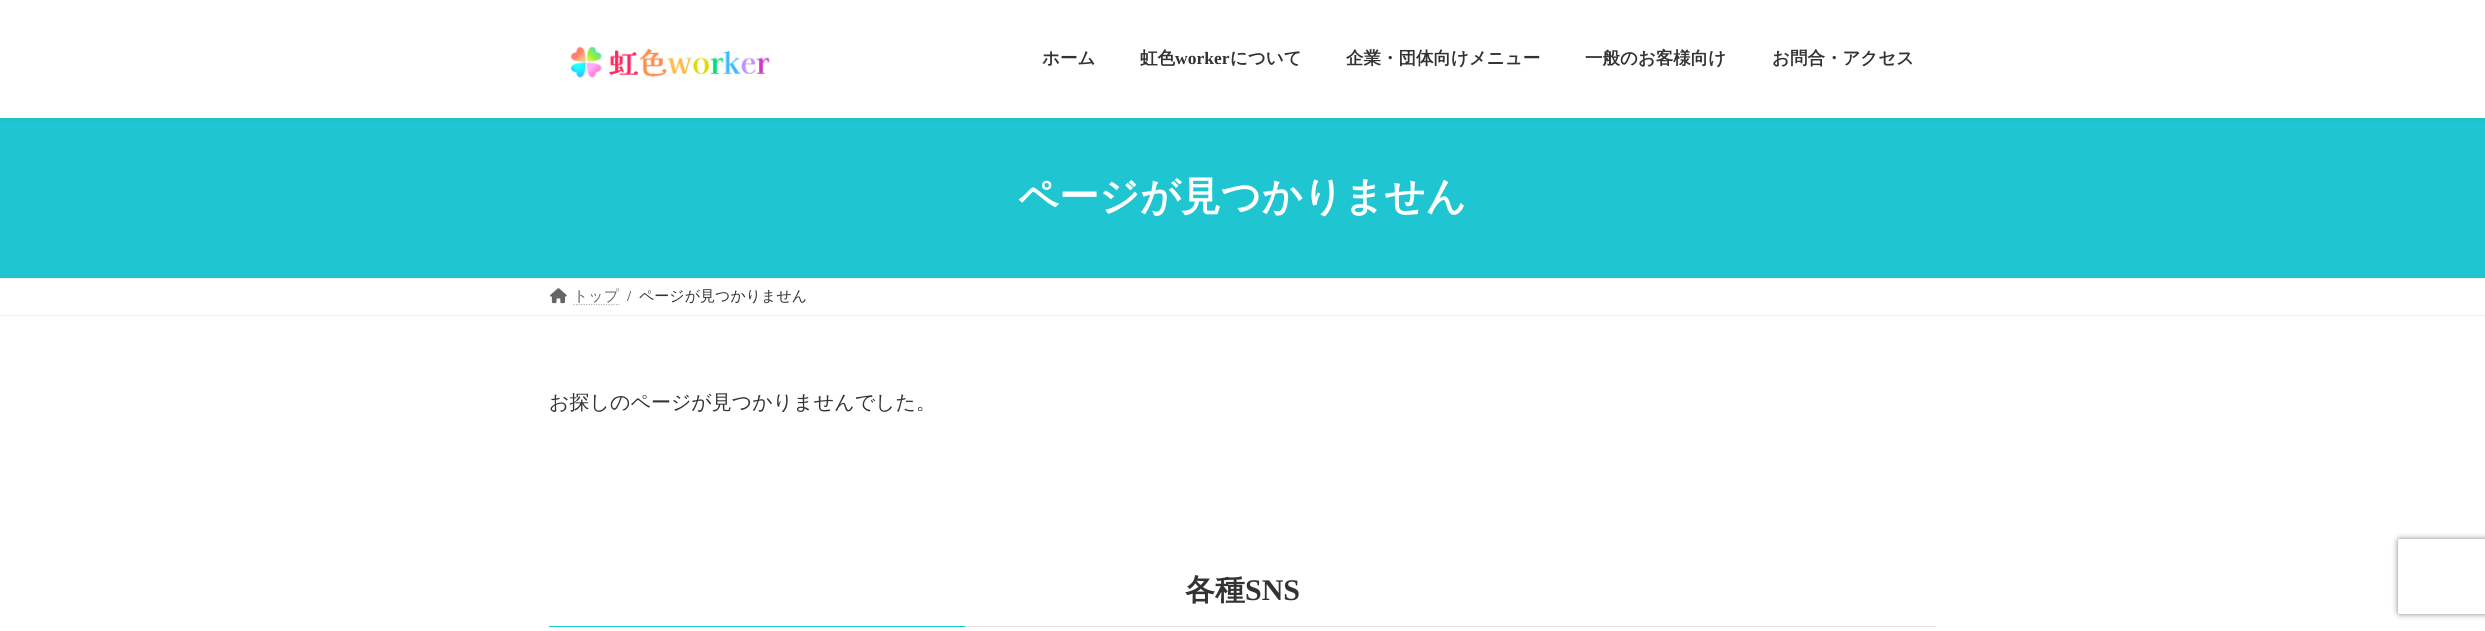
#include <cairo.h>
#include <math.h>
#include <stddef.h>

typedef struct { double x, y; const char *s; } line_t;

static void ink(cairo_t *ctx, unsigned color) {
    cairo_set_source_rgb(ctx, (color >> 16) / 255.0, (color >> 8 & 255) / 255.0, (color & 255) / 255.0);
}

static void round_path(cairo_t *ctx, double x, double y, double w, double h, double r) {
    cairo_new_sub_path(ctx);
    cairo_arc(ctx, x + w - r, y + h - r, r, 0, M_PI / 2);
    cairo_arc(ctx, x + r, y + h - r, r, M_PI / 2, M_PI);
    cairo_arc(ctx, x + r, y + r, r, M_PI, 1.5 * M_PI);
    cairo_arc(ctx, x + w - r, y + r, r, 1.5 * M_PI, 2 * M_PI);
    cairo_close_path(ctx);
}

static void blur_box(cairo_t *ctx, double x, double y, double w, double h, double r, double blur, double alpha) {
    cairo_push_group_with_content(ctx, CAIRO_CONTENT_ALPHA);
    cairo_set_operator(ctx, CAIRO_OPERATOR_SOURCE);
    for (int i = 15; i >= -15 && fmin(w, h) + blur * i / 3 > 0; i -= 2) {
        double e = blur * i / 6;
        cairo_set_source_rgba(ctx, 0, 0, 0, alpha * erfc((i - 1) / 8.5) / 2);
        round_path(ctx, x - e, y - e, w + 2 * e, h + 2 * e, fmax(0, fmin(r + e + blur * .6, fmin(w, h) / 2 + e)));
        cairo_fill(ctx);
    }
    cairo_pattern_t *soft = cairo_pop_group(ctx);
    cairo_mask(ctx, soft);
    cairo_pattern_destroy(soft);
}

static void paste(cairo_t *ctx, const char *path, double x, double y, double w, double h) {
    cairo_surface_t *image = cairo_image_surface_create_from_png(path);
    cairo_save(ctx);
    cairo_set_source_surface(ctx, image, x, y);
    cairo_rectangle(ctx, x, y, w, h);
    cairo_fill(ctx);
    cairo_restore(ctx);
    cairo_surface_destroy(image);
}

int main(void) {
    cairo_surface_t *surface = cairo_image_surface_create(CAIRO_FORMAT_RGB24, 2485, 631);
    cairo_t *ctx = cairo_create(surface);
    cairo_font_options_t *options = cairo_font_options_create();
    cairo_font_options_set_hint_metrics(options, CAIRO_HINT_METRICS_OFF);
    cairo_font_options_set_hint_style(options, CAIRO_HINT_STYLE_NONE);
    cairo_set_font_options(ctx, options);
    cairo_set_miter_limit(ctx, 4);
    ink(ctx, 0xFFFFFF);
    cairo_paint(ctx);
    ink(ctx, 0x1FC5D1);
    cairo_rectangle(ctx, 0, 118, 2485, 160);
    cairo_fill(ctx);
    ink(ctx, 0x000000);
    blur_box(ctx, 0, 1, 2485, 118, 0, 2, 0.05);
    ink(ctx, 0xFFFFFF);
    cairo_rectangle(ctx, 0, 0, 2485, 118);
    cairo_fill(ctx);
    paste(ctx, "media/1.png", 570, 46, 200, 32);
    cairo_select_font_face(ctx, "WenQuanYi Zen Hei", CAIRO_FONT_SLANT_NORMAL, CAIRO_FONT_WEIGHT_BOLD);
    cairo_set_font_size(ctx, 17.5);
    ink(ctx, 0x333333);
    cairo_move_to(ctx, 1042, 64);
    cairo_show_text(ctx, "ホーム");
    cairo_move_to(ctx, 1140, 64);
    cairo_show_text(ctx, "虹色");
    cairo_select_font_face(ctx, "Liberation Serif", CAIRO_FONT_SLANT_NORMAL, CAIRO_FONT_WEIGHT_BOLD);
    cairo_move_to(ctx, 1175, 64);
    cairo_show_text(ctx, "worker");
    cairo_select_font_face(ctx, "WenQuanYi Zen Hei", CAIRO_FONT_SLANT_NORMAL, CAIRO_FONT_WEIGHT_BOLD);
    {
        static const line_t items[] = {
            {1230, 64, "について"},
            {1346, 64, "企業・団体向けメニュー"},
            {1585, 64, "一般のお客様向け"},
            {1772, 64, "お問合・アクセス"},
        };
        for (size_t i = 0; i < sizeof items / sizeof *items; i++) {
            cairo_move_to(ctx, items[i].x, items[i].y);
            cairo_show_text(ctx, items[i].s);
        }
    }
    cairo_set_font_size(ctx, 40);
    ink(ctx, 0xFFFFFF);
    cairo_move_to(ctx, 1018, 210);
    cairo_show_text(ctx, "ページが見つかりません");
    ink(ctx, 0xF0F0F0);
    cairo_rectangle(ctx, 0, 278, 2485, 1);
    cairo_fill(ctx);
    cairo_rectangle(ctx, 0, 315, 2485, 1);
    cairo_fill(ctx);
    paste(ctx, "media/2.png", 550, 288, 17, 16);
    cairo_select_font_face(ctx, "WenQuanYi Zen Hei Medium", CAIRO_FONT_SLANT_NORMAL, CAIRO_FONT_WEIGHT_NORMAL);
    cairo_set_font_size(ctx, 15);
    ink(ctx, 0x666666);
    cairo_move_to(ctx, 573, 301);
    cairo_show_text(ctx, "トップ");
    cairo_new_path(ctx);
    cairo_move_to(ctx, 573.5, 304.5);
    cairo_line_to(ctx, 619.5, 304.5);
    ink(ctx, 0xB3B3B3);
    cairo_set_line_width(ctx, 1.2);
    cairo_set_dash(ctx, (double[]){1.25, 1.25}, 2, 0);
    cairo_stroke(ctx);
    cairo_select_font_face(ctx, "Liberation Serif", CAIRO_FONT_SLANT_NORMAL, CAIRO_FONT_WEIGHT_NORMAL);
    ink(ctx, 0x333333);
    cairo_move_to(ctx, 627, 301);
    cairo_show_text(ctx, "/");
    cairo_select_font_face(ctx, "WenQuanYi Zen Hei Medium", CAIRO_FONT_SLANT_NORMAL, CAIRO_FONT_WEIGHT_NORMAL);
    cairo_move_to(ctx, 639, 301);
    cairo_show_text(ctx, "ページが見つかりません");
    cairo_set_font_size(ctx, 20);
    cairo_move_to(ctx, 549, 409);
    cairo_show_text(ctx, "お探しのページが見つかりませんでした。");
    ink(ctx, 0xE0E0E0);
    cairo_rectangle(ctx, 965, 626, 971, 1);
    cairo_fill(ctx);
    cairo_select_font_face(ctx, "WenQuanYi Zen Hei", CAIRO_FONT_SLANT_NORMAL, CAIRO_FONT_WEIGHT_BOLD);
    cairo_set_font_size(ctx, 30);
    ink(ctx, 0x333333);
    cairo_move_to(ctx, 1185, 600);
    cairo_show_text(ctx, "各種");
    cairo_select_font_face(ctx, "Liberation Serif", CAIRO_FONT_SLANT_NORMAL, CAIRO_FONT_WEIGHT_BOLD);
    cairo_move_to(ctx, 1245, 600);
    cairo_show_text(ctx, "SNS");
    ink(ctx, 0x1FC5D1);
    cairo_rectangle(ctx, 549, 626, 416, 1);
    cairo_fill(ctx);
    cairo_save(ctx);
    cairo_set_fill_rule(ctx, CAIRO_FILL_RULE_EVEN_ODD);
    cairo_new_path(ctx);
    cairo_move_to(ctx, 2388, 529);
    cairo_line_to(ctx, 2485, 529);
    cairo_line_to(ctx, 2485, 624);
    cairo_line_to(ctx, 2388, 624);
    cairo_close_path(ctx);
    cairo_move_to(ctx, 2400.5, 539);
    cairo_line_to(ctx, 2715.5, 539);
    cairo_curve_to(ctx, 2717, 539, 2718, 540, 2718, 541.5);
    cairo_line_to(ctx, 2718, 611.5);
    cairo_curve_to(ctx, 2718, 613, 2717, 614, 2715.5, 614);
    cairo_line_to(ctx, 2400.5, 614);
    cairo_curve_to(ctx, 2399, 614, 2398, 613, 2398, 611.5);
    cairo_line_to(ctx, 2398, 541.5);
    cairo_curve_to(ctx, 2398, 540, 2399, 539, 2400.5, 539);
    cairo_close_path(ctx);
    cairo_clip(ctx);
    ink(ctx, 0x808080);
    blur_box(ctx, 2398, 539, 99, 75, 2.5, 3, 1);
    cairo_restore(ctx);
    cairo_surface_write_to_png(surface, "image.png");
    cairo_font_options_destroy(options);
    cairo_destroy(ctx);
    cairo_surface_destroy(surface);
    return 0;
}
